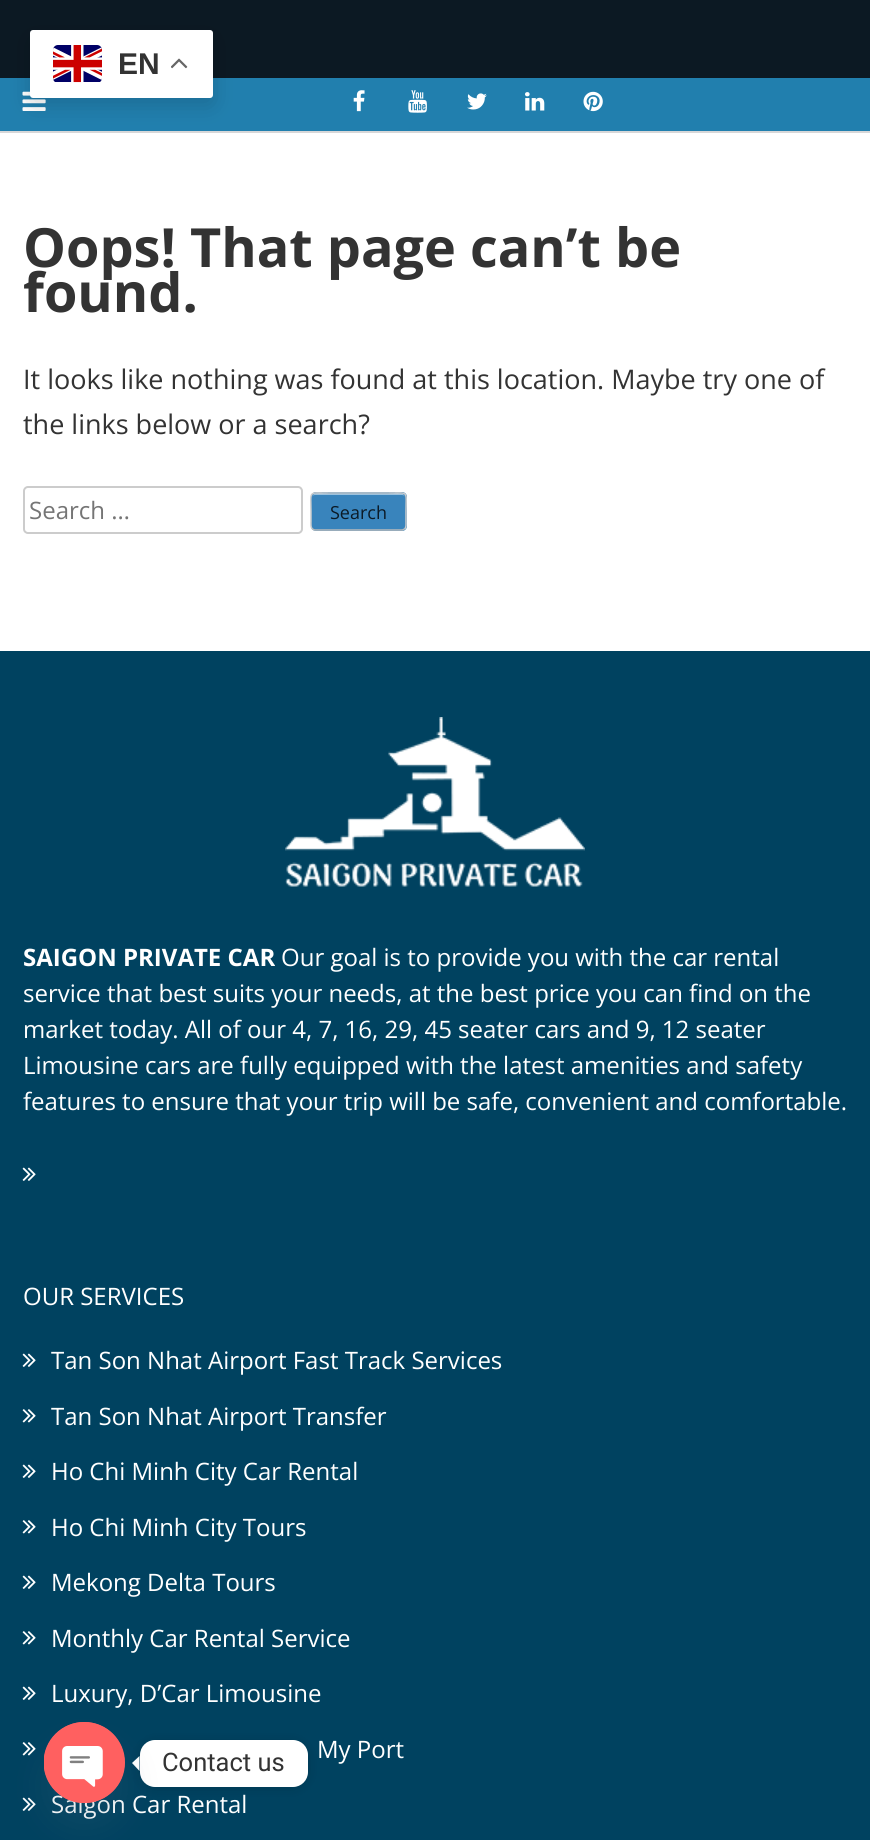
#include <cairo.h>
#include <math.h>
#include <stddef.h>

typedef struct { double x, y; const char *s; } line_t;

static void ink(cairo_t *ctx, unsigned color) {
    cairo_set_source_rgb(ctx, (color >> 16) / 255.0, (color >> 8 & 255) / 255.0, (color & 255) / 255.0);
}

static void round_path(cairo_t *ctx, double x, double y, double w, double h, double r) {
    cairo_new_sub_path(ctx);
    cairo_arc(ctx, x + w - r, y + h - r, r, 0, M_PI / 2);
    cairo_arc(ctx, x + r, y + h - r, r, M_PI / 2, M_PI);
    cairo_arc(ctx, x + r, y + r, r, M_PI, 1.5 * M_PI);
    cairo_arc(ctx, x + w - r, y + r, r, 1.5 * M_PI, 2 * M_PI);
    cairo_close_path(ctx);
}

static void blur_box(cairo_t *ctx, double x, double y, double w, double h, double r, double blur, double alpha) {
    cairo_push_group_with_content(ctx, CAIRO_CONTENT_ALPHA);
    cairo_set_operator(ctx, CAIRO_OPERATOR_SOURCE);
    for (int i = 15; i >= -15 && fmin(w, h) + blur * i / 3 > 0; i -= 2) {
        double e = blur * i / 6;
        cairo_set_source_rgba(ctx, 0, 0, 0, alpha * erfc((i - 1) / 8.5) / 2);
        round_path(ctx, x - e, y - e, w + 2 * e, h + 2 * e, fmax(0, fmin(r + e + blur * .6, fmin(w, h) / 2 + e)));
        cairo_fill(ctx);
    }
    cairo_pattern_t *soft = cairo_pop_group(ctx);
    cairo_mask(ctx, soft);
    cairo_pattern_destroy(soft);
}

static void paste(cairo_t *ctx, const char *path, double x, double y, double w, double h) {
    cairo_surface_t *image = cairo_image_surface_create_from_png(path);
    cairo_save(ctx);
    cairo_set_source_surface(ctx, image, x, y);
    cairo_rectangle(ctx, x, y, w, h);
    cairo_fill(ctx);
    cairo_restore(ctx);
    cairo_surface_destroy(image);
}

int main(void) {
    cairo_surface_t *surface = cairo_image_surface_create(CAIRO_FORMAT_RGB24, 870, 1840);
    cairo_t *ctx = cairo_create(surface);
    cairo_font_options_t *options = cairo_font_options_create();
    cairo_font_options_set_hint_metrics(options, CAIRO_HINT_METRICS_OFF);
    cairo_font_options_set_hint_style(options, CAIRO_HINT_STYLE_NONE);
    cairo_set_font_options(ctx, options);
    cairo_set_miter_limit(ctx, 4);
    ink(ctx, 0xFFFFFF);
    cairo_paint(ctx);
    ink(ctx, 0x0C1923);
    cairo_rectangle(ctx, 0, 0, 870, 78);
    cairo_fill(ctx);
    ink(ctx, 0x217FAE);
    cairo_rectangle(ctx, 0, 78, 870, 53);
    cairo_fill(ctx);
    paste(ctx, "media/3.png", 22, 91, 24, 20);
    ink(ctx, 0xD7D7D8);
    cairo_rectangle(ctx, 0, 131, 870, 2);
    cairo_fill(ctx);
    ink(ctx, 0x000000);
    blur_box(ctx, 30, 38, 183, 67, 3, 11, 0.15);
    ink(ctx, 0xFFFFFF);
    round_path(ctx, 30, 30, 183, 68, 3);
    cairo_fill(ctx);
    paste(ctx, "media/1.png", 53, 45, 49, 38);
    cairo_select_font_face(ctx, "Liberation Sans", CAIRO_FONT_SLANT_NORMAL, CAIRO_FONT_WEIGHT_BOLD);
    cairo_set_font_size(ctx, 30);
    ink(ctx, 0x333333);
    cairo_move_to(ctx, 118, 74);
    cairo_show_text(ctx, "EN");
    paste(ctx, "media/2.png", 171, 58, 17, 11);
    paste(ctx, "media/4.png", 353, 90, 12, 22);
    paste(ctx, "media/5.png", 408, 90, 19, 23);
    paste(ctx, "media/6.png", 467, 93, 20, 17);
    paste(ctx, "media/7.png", 525, 92, 20, 19);
    paste(ctx, "media/8.png", 583, 91, 20, 21);
    cairo_select_font_face(ctx, "Open Sans", CAIRO_FONT_SLANT_NORMAL, CAIRO_FONT_WEIGHT_BOLD);
    cairo_set_font_size(ctx, 54);
    cairo_move_to(ctx, 23, 267);
    cairo_show_text(ctx, "Oops! That page can’t be");
    cairo_move_to(ctx, 23, 312);
    cairo_show_text(ctx, "found.");
    cairo_select_font_face(ctx, "Open Sans", CAIRO_FONT_SLANT_NORMAL, CAIRO_FONT_WEIGHT_NORMAL);
    cairo_set_font_size(ctx, 27);
    cairo_move_to(ctx, 23, 389);
    cairo_show_text(ctx, "It looks like nothing was found at this location. Maybe try one of");
    cairo_move_to(ctx, 23, 434);
    cairo_show_text(ctx, "the links below or a search?");
    round_path(ctx, 24, 487, 278, 46, 4);
    ink(ctx, 0xCCCCCC);
    cairo_stroke(ctx);
    cairo_set_font_size(ctx, 24);
    ink(ctx, 0x757575);
    cairo_move_to(ctx, 29, 519);
    cairo_show_text(ctx, "Search …");
    ink(ctx, 0x3984BC);
    round_path(ctx, 311, 492, 96, 39, 5);
    cairo_fill(ctx);
    ink(ctx, 0x9CC2DE);
    cairo_new_path(ctx);
    cairo_move_to(ctx, 315, 495);
    cairo_line_to(ctx, 402, 495);
    cairo_curve_to(ctx, 404, 495, 405, 496, 405, 498);
    cairo_curve_to(ctx, 405, 490, 391, 494, 388, 494);
    cairo_line_to(ctx, 330, 494);
    cairo_curve_to(ctx, 326, 494, 312, 490, 312, 498);
    cairo_curve_to(ctx, 312, 496, 313, 495, 315, 495);
    cairo_close_path(ctx);
    cairo_fill(ctx);
    cairo_new_path(ctx);
    cairo_move_to(ctx, 404.5, 529);
    cairo_line_to(ctx, 402.5, 530);
    cairo_line_to(ctx, 314.5, 530);
    cairo_line_to(ctx, 312.5, 529);
    ink(ctx, 0xBBBBBB);
    cairo_set_line_width(ctx, 1.5);
    cairo_stroke(ctx);
    cairo_new_path(ctx);
    cairo_move_to(ctx, 312.5, 529);
    cairo_curve_to(ctx, 310.5, 527.5, 311, 523.5, 311, 521.5);
    cairo_line_to(ctx, 311, 511.5);
    cairo_curve_to(ctx, 311, 490, 307.5, 493, 329.5, 493);
    cairo_line_to(ctx, 387.5, 493);
    cairo_curve_to(ctx, 409.5, 493, 406, 490, 406, 511.5);
    cairo_line_to(ctx, 406, 521.5);
    cairo_curve_to(ctx, 406, 523.5, 406.5, 527.5, 404.5, 529);
    ink(ctx, 0xCCCCCC);
    cairo_stroke(ctx);
    cairo_set_font_size(ctx, 18);
    ink(ctx, 0x0B1A26);
    cairo_move_to(ctx, 330, 519);
    cairo_show_text(ctx, "Search");
    ink(ctx, 0x004260);
    cairo_rectangle(ctx, 0, 651, 870, 1189);
    cairo_fill(ctx);
    paste(ctx, "media/9.png", 285, 717, 300, 170);
    cairo_select_font_face(ctx, "Open Sans", CAIRO_FONT_SLANT_NORMAL, CAIRO_FONT_WEIGHT_BOLD);
    cairo_set_font_size(ctx, 24);
    ink(ctx, 0xFFFFFF);
    cairo_move_to(ctx, 23, 966);
    cairo_show_text(ctx, "SAIGON PRIVATE CAR");
    cairo_select_font_face(ctx, "Open Sans", CAIRO_FONT_SLANT_NORMAL, CAIRO_FONT_WEIGHT_NORMAL);
    {
        static const line_t items[] = {
            {281, 966, "Our goal is to provide you with the car rental"},
            {23, 1002, "service that best suits your needs, at the best price you can find on the"},
            {23, 1038, "market today. All of our 4, 7, 16, 29, 45 seater cars and 9, 12 seater"},
            {23, 1074, "Limousine cars are fully equipped with the latest amenities and safety"},
            {23, 1110, "features to ensure that your trip will be safe, convenient and comfortable."},
        };
        for (size_t i = 0; i < sizeof items / sizeof *items; i++) {
            cairo_move_to(ctx, items[i].x, items[i].y);
            cairo_show_text(ctx, items[i].s);
        }
    }
    paste(ctx, "media/10.png", 22, 1167, 14, 14);
    cairo_move_to(ctx, 23, 1305);
    cairo_show_text(ctx, "OUR SERVICES");
    paste(ctx, "media/10.png", 22, 1353, 14, 14);
    cairo_move_to(ctx, 51, 1369);
    cairo_show_text(ctx, "Tan Son Nhat Airport Fast Track Services");
    paste(ctx, "media/11.png", 22, 1409, 14, 14);
    cairo_move_to(ctx, 51, 1425);
    cairo_show_text(ctx, "Tan Son Nhat Airport Transfer");
    paste(ctx, "media/10.png", 22, 1464, 14, 14);
    cairo_move_to(ctx, 51, 1480);
    cairo_show_text(ctx, "Ho Chi Minh City Car Rental");
    paste(ctx, "media/11.png", 22, 1520, 14, 14);
    cairo_move_to(ctx, 51, 1536);
    cairo_show_text(ctx, "Ho Chi Minh City Tours");
    paste(ctx, "media/10.png", 22, 1575, 14, 14);
    cairo_move_to(ctx, 51, 1591);
    cairo_show_text(ctx, "Mekong Delta Tours");
    paste(ctx, "media/11.png", 22, 1631, 14, 14);
    cairo_move_to(ctx, 51, 1647);
    cairo_show_text(ctx, "Monthly Car Rental Service");
    paste(ctx, "media/10.png", 22, 1686, 14, 14);
    cairo_move_to(ctx, 51, 1702);
    cairo_show_text(ctx, "Luxury, D’Car Limousine");
    paste(ctx, "media/11.png", 22, 1742, 14, 14);
    cairo_move_to(ctx, 317, 1758);
    cairo_show_text(ctx, "My Port");
    paste(ctx, "media/10.png", 22, 1797, 14, 14);
    cairo_move_to(ctx, 51, 1813);
    cairo_show_text(ctx, "Saigon Car Rental");
    ink(ctx, 0x000000);
    blur_box(ctx, 140, 1742, 168, 46, 15, 6, 0.15);
    ink(ctx, 0xFFFFFF);
    round_path(ctx, 140, 1740, 168, 47, 15);
    cairo_fill(ctx);
    cairo_new_path(ctx);
    cairo_move_to(ctx, 139.5, 1756);
    cairo_line_to(ctx, 139.5, 1771);
    cairo_line_to(ctx, 132, 1763);
    cairo_close_path(ctx);
    cairo_fill(ctx);
    ink(ctx, 0x49687E);
    blur_box(ctx, 44, 1746, 81, 81, 40.5, 18, 0.16);
    ink(ctx, 0xFF6060);
    cairo_arc(ctx, 84.5, 1762.5, 40.5, 0, 2 * M_PI);
    cairo_fill(ctx);
    paste(ctx, "media/12.png", 44, 1722, 81, 81);
    cairo_select_font_face(ctx, "Roboto", CAIRO_FONT_SLANT_NORMAL, CAIRO_FONT_WEIGHT_NORMAL);
    cairo_set_font_size(ctx, 25.5);
    ink(ctx, 0x333333);
    cairo_move_to(ctx, 162, 1771);
    cairo_show_text(ctx, "Contact us");
    cairo_surface_write_to_png(surface, "image.png");
    cairo_font_options_destroy(options);
    cairo_destroy(ctx);
    cairo_surface_destroy(surface);
    return 0;
}
